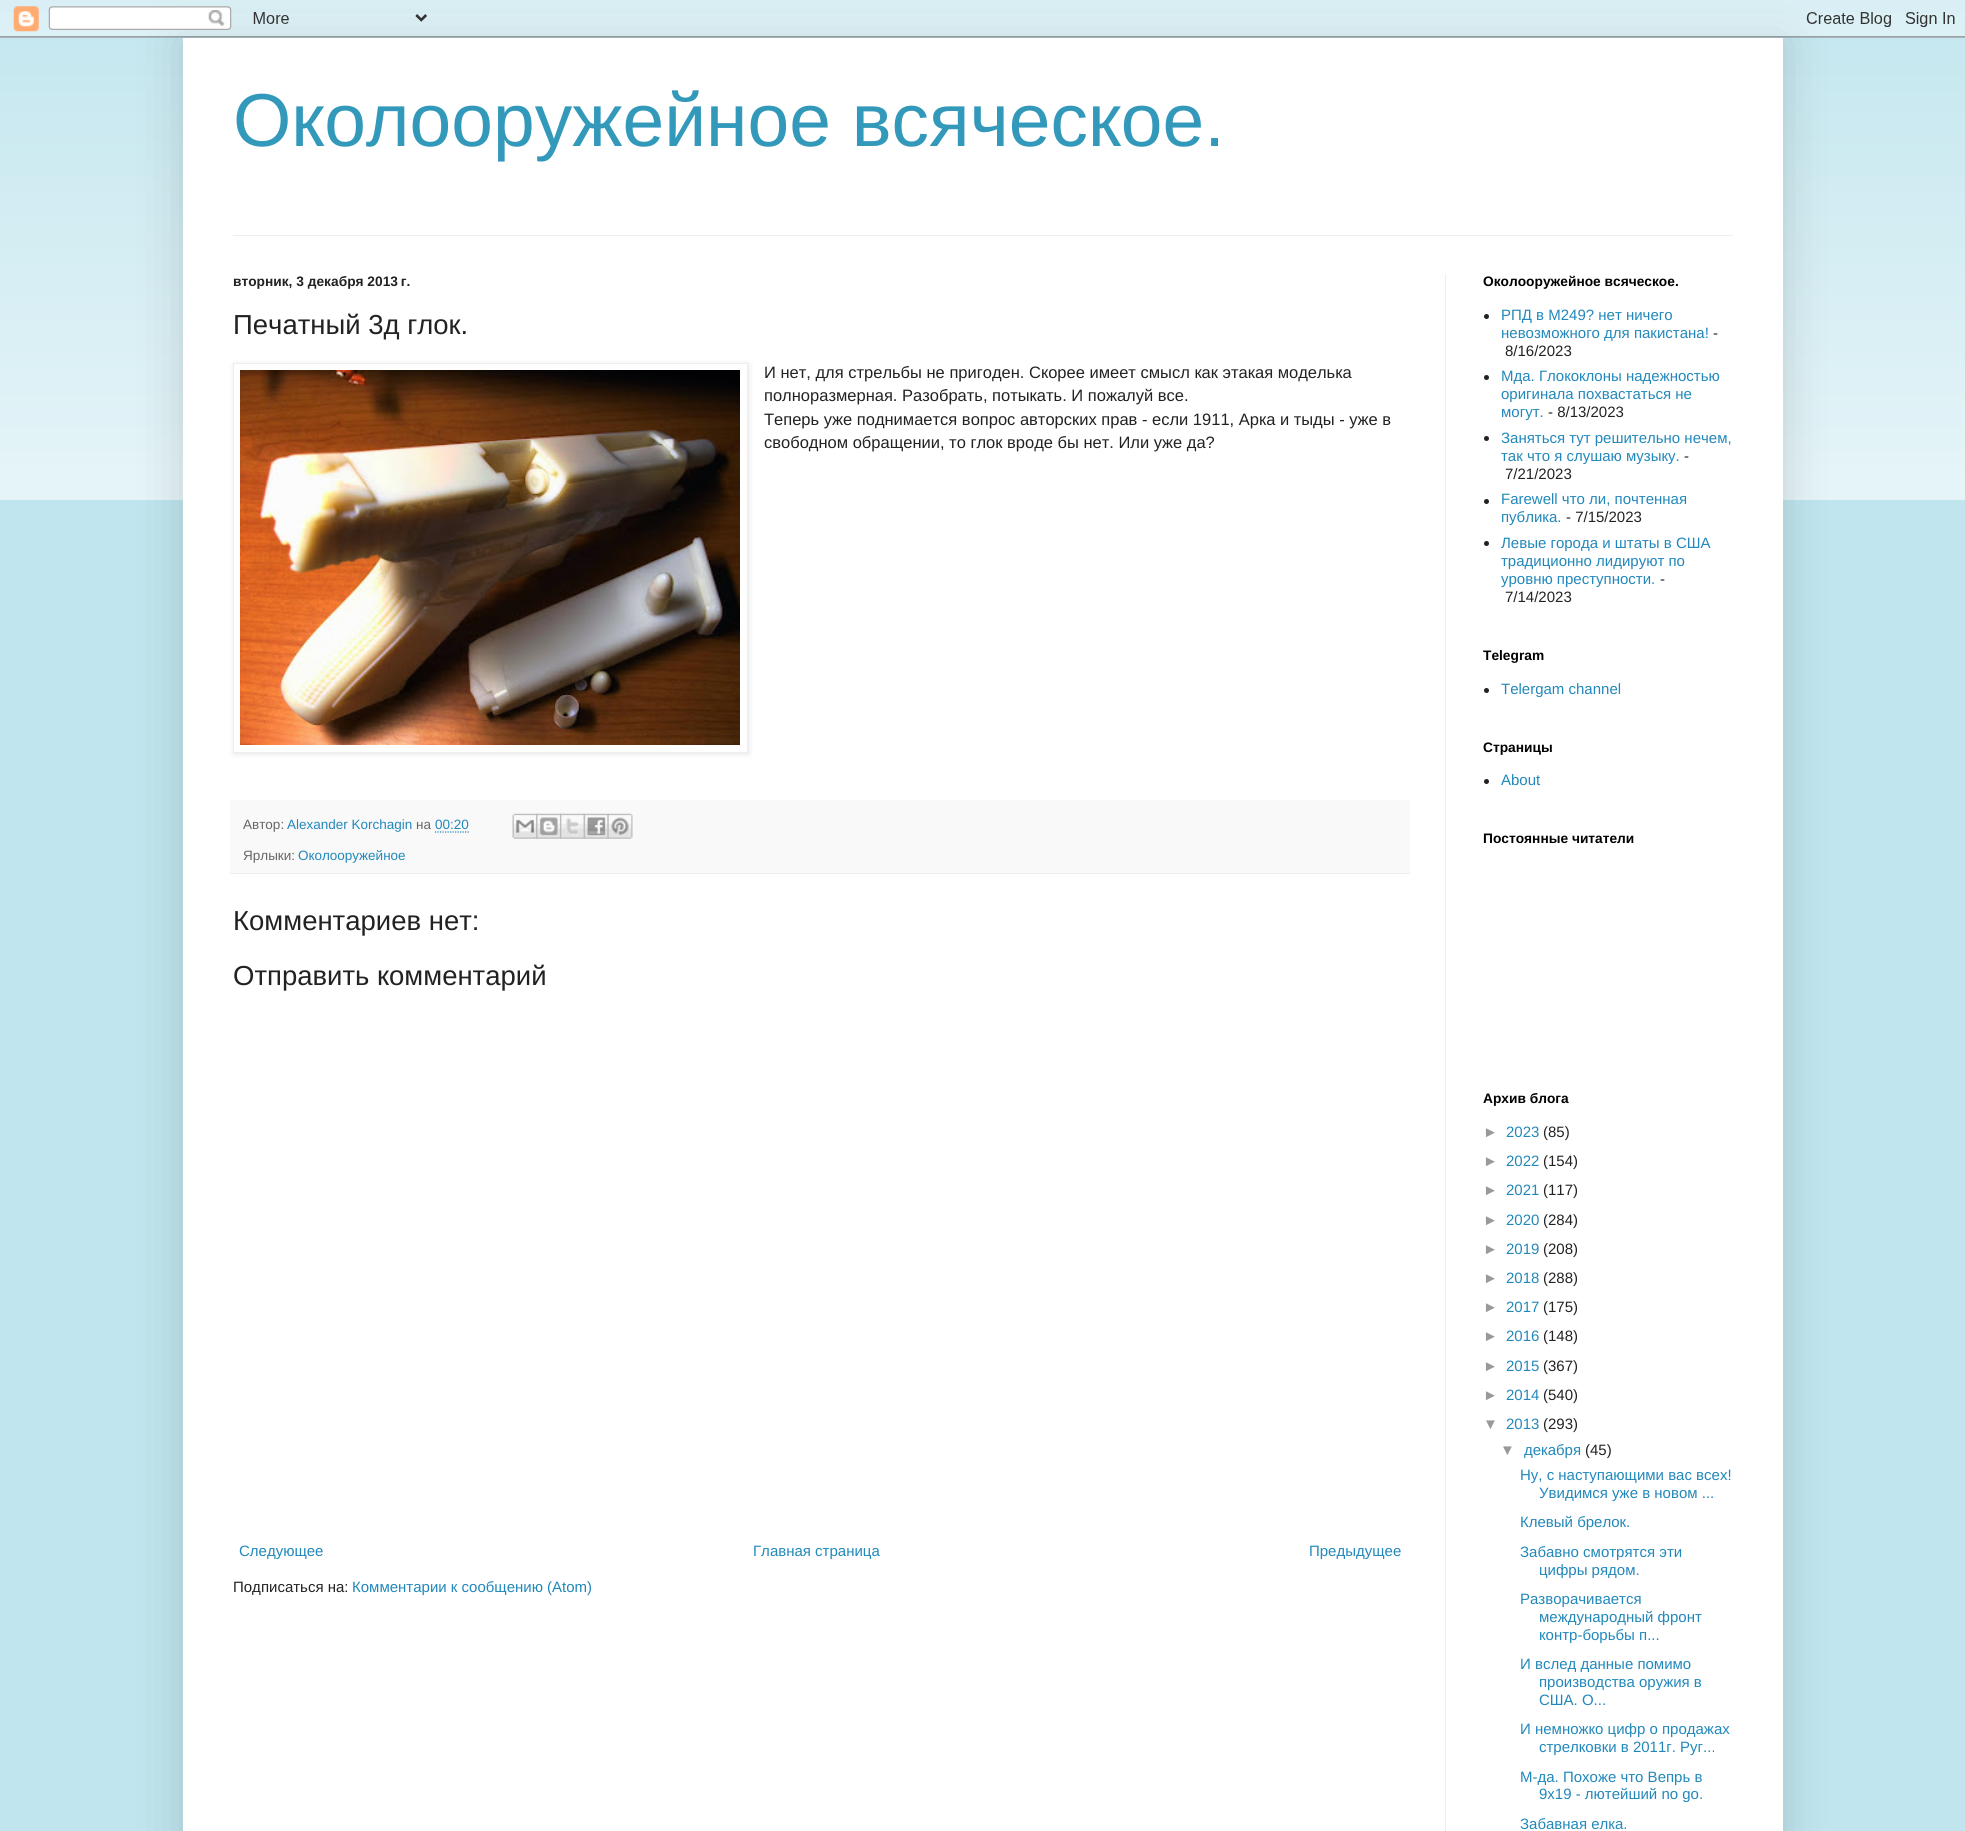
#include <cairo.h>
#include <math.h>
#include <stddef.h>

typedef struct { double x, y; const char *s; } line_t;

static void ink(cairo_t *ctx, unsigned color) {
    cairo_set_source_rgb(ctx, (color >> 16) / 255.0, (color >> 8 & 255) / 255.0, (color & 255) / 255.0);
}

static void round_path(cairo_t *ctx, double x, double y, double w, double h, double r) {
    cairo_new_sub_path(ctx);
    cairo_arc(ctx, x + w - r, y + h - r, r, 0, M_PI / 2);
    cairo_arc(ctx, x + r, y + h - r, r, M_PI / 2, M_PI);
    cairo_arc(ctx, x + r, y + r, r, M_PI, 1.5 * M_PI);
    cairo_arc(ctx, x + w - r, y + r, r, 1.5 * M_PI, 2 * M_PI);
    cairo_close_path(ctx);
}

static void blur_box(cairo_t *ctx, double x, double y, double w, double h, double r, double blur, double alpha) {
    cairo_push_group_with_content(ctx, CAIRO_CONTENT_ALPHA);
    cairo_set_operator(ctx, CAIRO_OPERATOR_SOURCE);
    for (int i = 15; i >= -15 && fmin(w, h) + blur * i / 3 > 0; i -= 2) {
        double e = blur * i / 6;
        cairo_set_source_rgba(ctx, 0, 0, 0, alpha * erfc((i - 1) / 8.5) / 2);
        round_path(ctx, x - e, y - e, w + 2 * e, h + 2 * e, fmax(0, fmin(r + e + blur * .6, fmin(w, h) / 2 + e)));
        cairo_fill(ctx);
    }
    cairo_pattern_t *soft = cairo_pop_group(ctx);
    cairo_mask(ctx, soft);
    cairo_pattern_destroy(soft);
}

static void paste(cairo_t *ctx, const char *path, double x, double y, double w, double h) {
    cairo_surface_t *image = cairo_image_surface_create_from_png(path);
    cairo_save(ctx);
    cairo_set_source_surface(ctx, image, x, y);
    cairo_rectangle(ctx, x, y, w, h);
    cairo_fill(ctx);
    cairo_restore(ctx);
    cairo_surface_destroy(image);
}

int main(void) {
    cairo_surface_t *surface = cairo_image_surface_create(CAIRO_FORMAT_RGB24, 1965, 1831);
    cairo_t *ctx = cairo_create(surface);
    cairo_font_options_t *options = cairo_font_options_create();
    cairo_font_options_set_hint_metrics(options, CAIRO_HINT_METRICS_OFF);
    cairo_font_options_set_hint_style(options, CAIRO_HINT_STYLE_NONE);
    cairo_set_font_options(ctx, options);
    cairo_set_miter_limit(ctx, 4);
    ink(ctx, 0xC0E5EE);
    cairo_paint(ctx);
    paste(ctx, "media/2.png", 0, 13, 1965, 487);
    ink(ctx, 0x000000);
    blur_box(ctx, 183, 38, 1600, 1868, 0, 25, 0.15);
    paste(ctx, "media/1.png", 0, 0, 1965, 38);
    ink(ctx, 0xFFFFFF);
    cairo_rectangle(ctx, 183, 38, 1600, 1793);
    cairo_fill(ctx);
    cairo_select_font_face(ctx, "Liberation Sans", CAIRO_FONT_SLANT_NORMAL, CAIRO_FONT_WEIGHT_NORMAL);
    cairo_set_font_size(ctx, 75);
    ink(ctx, 0x3399BB);
    cairo_move_to(ctx, 233, 146);
    cairo_show_text(ctx, "Околооружейное всяческое.");
    ink(ctx, 0xEEEEEE);
    cairo_rectangle(ctx, 233, 235, 1500, 1);
    cairo_fill(ctx);
    cairo_rectangle(ctx, 1445, 274, 1, 1557);
    cairo_fill(ctx);
    cairo_select_font_face(ctx, "Liberation Sans", CAIRO_FONT_SLANT_NORMAL, CAIRO_FONT_WEIGHT_BOLD);
    cairo_set_font_size(ctx, 13.75);
    ink(ctx, 0x222222);
    cairo_move_to(ctx, 233, 286);
    cairo_show_text(ctx, "вторник, 3 декабря 2013 г.");
    cairo_select_font_face(ctx, "Liberation Sans", CAIRO_FONT_SLANT_NORMAL, CAIRO_FONT_WEIGHT_NORMAL);
    cairo_set_font_size(ctx, 27.5);
    cairo_move_to(ctx, 233, 334);
    cairo_show_text(ctx, "Печатный 3д глок.");
    ink(ctx, 0x000000);
    blur_box(ctx, 234, 364, 515, 390, 0, 3, 0.1);
    ink(ctx, 0xFFFFFF);
    cairo_rectangle(ctx, 233.5, 363.5, 514, 389);
    cairo_fill_preserve(ctx);
    ink(ctx, 0xEEEEEE);
    cairo_set_line_width(ctx, 1);
    cairo_stroke(ctx);
    paste(ctx, "media/3.png", 240, 370, 500, 375);
    cairo_set_font_size(ctx, 16.5);
    ink(ctx, 0x222222);
    {
        static const line_t items[] = {
            {764, 378, "И нет, для стрельбы не пригоден. Скорее имеет смысл как этакая моделька"},
            {764, 401, "полноразмерная. Разобрать, потыкать. И пожалуй все."},
            {764, 425, "Теперь уже поднимается вопрос авторских прав - если 1911, Арка и тыды - уже в"},
            {764, 448, "свободном обращении, то глок вроде бы нет. Или уже да?"},
        };
        for (size_t i = 0; i < sizeof items / sizeof *items; i++) {
            cairo_move_to(ctx, items[i].x, items[i].y);
            cairo_show_text(ctx, items[i].s);
        }
    }
    ink(ctx, 0xF9F9F9);
    cairo_rectangle(ctx, 230, 800, 1180, 73);
    cairo_fill(ctx);
    ink(ctx, 0xEEEEEE);
    cairo_rectangle(ctx, 230, 873, 1180, 1);
    cairo_fill(ctx);
    cairo_set_font_size(ctx, 13.5);
    ink(ctx, 0x666666);
    cairo_move_to(ctx, 243, 829);
    cairo_show_text(ctx, "Автор:");
    ink(ctx, 0x2288BB);
    cairo_move_to(ctx, 287, 829);
    cairo_show_text(ctx, "Alexander Korchagin");
    ink(ctx, 0x666666);
    cairo_move_to(ctx, 416, 829);
    cairo_show_text(ctx, "на");
    ink(ctx, 0x2288BB);
    cairo_move_to(ctx, 435, 829);
    cairo_show_text(ctx, "00:20");
    cairo_new_path(ctx);
    cairo_move_to(ctx, 435, 832);
    cairo_line_to(ctx, 469, 832);
    cairo_set_line_width(ctx, 1.2);
    cairo_set_dash(ctx, (double[]){1.25, 1.25}, 2, 0);
    cairo_stroke(ctx);
    paste(ctx, "media/4.png", 512, 813, 26, 26);
    paste(ctx, "media/5.png", 536, 813, 26, 26);
    paste(ctx, "media/6.png", 560, 813, 25, 26);
    paste(ctx, "media/7.png", 583, 813, 26, 26);
    paste(ctx, "media/8.png", 607, 813, 26, 26);
    ink(ctx, 0x666666);
    cairo_move_to(ctx, 243, 860);
    cairo_show_text(ctx, "Ярлыки:");
    ink(ctx, 0x2288BB);
    cairo_move_to(ctx, 298, 860);
    cairo_show_text(ctx, "Околооружейное");
    cairo_set_font_size(ctx, 27.5);
    ink(ctx, 0x222222);
    cairo_move_to(ctx, 233, 930);
    cairo_show_text(ctx, "Комментариев нет:");
    cairo_move_to(ctx, 233, 985);
    cairo_show_text(ctx, "Отправить комментарий");
    cairo_set_font_size(ctx, 15);
    ink(ctx, 0x2288BB);
    {
        static const line_t items[] = {
            {239, 1556, "Следующее"},
            {753, 1556, "Главная страница"},
            {1309, 1556, "Предыдущее"},
        };
        for (size_t i = 0; i < sizeof items / sizeof *items; i++) {
            cairo_move_to(ctx, items[i].x, items[i].y);
            cairo_show_text(ctx, items[i].s);
        }
    }
    ink(ctx, 0x222222);
    cairo_move_to(ctx, 233, 1592);
    cairo_show_text(ctx, "Подписаться на:");
    ink(ctx, 0x2288BB);
    cairo_move_to(ctx, 352, 1592);
    cairo_show_text(ctx, "Комментарии к сообщению (Atom)");
    cairo_select_font_face(ctx, "Liberation Sans", CAIRO_FONT_SLANT_NORMAL, CAIRO_FONT_WEIGHT_BOLD);
    cairo_set_font_size(ctx, 13.75);
    ink(ctx, 0x000000);
    cairo_move_to(ctx, 1483, 286);
    cairo_show_text(ctx, "Околооружейное всяческое.");
    ink(ctx, 0x222222);
    cairo_new_path(ctx);
    cairo_arc(ctx, 1486.5, 316.5, 2.5, 0, 2 * M_PI);
    cairo_fill(ctx);
    cairo_select_font_face(ctx, "Liberation Sans", CAIRO_FONT_SLANT_NORMAL, CAIRO_FONT_WEIGHT_NORMAL);
    cairo_set_font_size(ctx, 15);
    ink(ctx, 0x2288BB);
    cairo_move_to(ctx, 1501, 320);
    cairo_show_text(ctx, "РПД в М249? нет ничего");
    cairo_move_to(ctx, 1501, 338);
    cairo_show_text(ctx, "невозможного для пакистана!");
    ink(ctx, 0x222222);
    cairo_move_to(ctx, 1713, 338);
    cairo_show_text(ctx, "-");
    cairo_move_to(ctx, 1505, 356);
    cairo_show_text(ctx, "8/16/2023");
    cairo_new_path(ctx);
    cairo_arc(ctx, 1486.5, 377.5, 2.5, 0, 2 * M_PI);
    cairo_fill(ctx);
    ink(ctx, 0x2288BB);
    {
        static const line_t items[] = {
            {1501, 381, "Мда. Глококлоны надежностью"},
            {1501, 399, "оригинала похвастаться не"},
            {1501, 417, "могут."},
        };
        for (size_t i = 0; i < sizeof items / sizeof *items; i++) {
            cairo_move_to(ctx, items[i].x, items[i].y);
            cairo_show_text(ctx, items[i].s);
        }
    }
    ink(ctx, 0x222222);
    cairo_move_to(ctx, 1548, 417);
    cairo_show_text(ctx, "- 8/13/2023");
    cairo_new_path(ctx);
    cairo_arc(ctx, 1486.5, 438.5, 2.5, 0, 2 * M_PI);
    cairo_fill(ctx);
    ink(ctx, 0x2288BB);
    cairo_move_to(ctx, 1501, 443);
    cairo_show_text(ctx, "Заняться тут решительно нечем,");
    cairo_move_to(ctx, 1501, 461);
    cairo_show_text(ctx, "так что я слушаю музыку.");
    ink(ctx, 0x222222);
    cairo_move_to(ctx, 1684, 461);
    cairo_show_text(ctx, "-");
    cairo_move_to(ctx, 1505, 479);
    cairo_show_text(ctx, "7/21/2023");
    cairo_new_path(ctx);
    cairo_arc(ctx, 1486.5, 501.5, 2.5, 0, 2 * M_PI);
    cairo_fill(ctx);
    ink(ctx, 0x2288BB);
    cairo_move_to(ctx, 1501, 504);
    cairo_show_text(ctx, "Farewell что ли, почтенная");
    cairo_move_to(ctx, 1501, 522);
    cairo_show_text(ctx, "публика.");
    ink(ctx, 0x222222);
    cairo_move_to(ctx, 1566, 522);
    cairo_show_text(ctx, "- 7/15/2023");
    cairo_new_path(ctx);
    cairo_arc(ctx, 1486.5, 543.5, 2.5, 0, 2 * M_PI);
    cairo_fill(ctx);
    ink(ctx, 0x2288BB);
    {
        static const line_t items[] = {
            {1501, 548, "Левые города и штаты в США"},
            {1501, 566, "традиционно лидируют по"},
            {1501, 584, "уровню преступности."},
        };
        for (size_t i = 0; i < sizeof items / sizeof *items; i++) {
            cairo_move_to(ctx, items[i].x, items[i].y);
            cairo_show_text(ctx, items[i].s);
        }
    }
    ink(ctx, 0x222222);
    cairo_move_to(ctx, 1660, 584);
    cairo_show_text(ctx, "-");
    cairo_move_to(ctx, 1505, 602);
    cairo_show_text(ctx, "7/14/2023");
    cairo_select_font_face(ctx, "Liberation Sans", CAIRO_FONT_SLANT_NORMAL, CAIRO_FONT_WEIGHT_BOLD);
    cairo_set_font_size(ctx, 13.75);
    ink(ctx, 0x000000);
    cairo_move_to(ctx, 1483, 660);
    cairo_show_text(ctx, "Telegram");
    ink(ctx, 0x222222);
    cairo_new_path(ctx);
    cairo_arc(ctx, 1486.5, 690.5, 2.5, 0, 2 * M_PI);
    cairo_fill(ctx);
    cairo_select_font_face(ctx, "Liberation Sans", CAIRO_FONT_SLANT_NORMAL, CAIRO_FONT_WEIGHT_NORMAL);
    cairo_set_font_size(ctx, 15);
    ink(ctx, 0x2288BB);
    cairo_move_to(ctx, 1501, 694);
    cairo_show_text(ctx, "Telergam channel");
    cairo_select_font_face(ctx, "Liberation Sans", CAIRO_FONT_SLANT_NORMAL, CAIRO_FONT_WEIGHT_BOLD);
    cairo_set_font_size(ctx, 13.75);
    ink(ctx, 0x000000);
    cairo_move_to(ctx, 1483, 752);
    cairo_show_text(ctx, "Страницы");
    ink(ctx, 0x222222);
    cairo_new_path(ctx);
    cairo_arc(ctx, 1486.5, 781.5, 2.5, 0, 2 * M_PI);
    cairo_fill(ctx);
    cairo_select_font_face(ctx, "Liberation Sans", CAIRO_FONT_SLANT_NORMAL, CAIRO_FONT_WEIGHT_NORMAL);
    cairo_set_font_size(ctx, 15);
    ink(ctx, 0x2288BB);
    cairo_move_to(ctx, 1501, 785);
    cairo_show_text(ctx, "About");
    cairo_select_font_face(ctx, "Liberation Sans", CAIRO_FONT_SLANT_NORMAL, CAIRO_FONT_WEIGHT_BOLD);
    cairo_set_font_size(ctx, 13.75);
    ink(ctx, 0x000000);
    cairo_move_to(ctx, 1483, 843);
    cairo_show_text(ctx, "Постоянные читатели");
    cairo_move_to(ctx, 1483, 1103);
    cairo_show_text(ctx, "Архив блога");
    cairo_select_font_face(ctx, "Liberation Sans", CAIRO_FONT_SLANT_NORMAL, CAIRO_FONT_WEIGHT_NORMAL);
    cairo_set_font_size(ctx, 15);
    ink(ctx, 0x999999);
    cairo_move_to(ctx, 1483, 1137);
    cairo_show_text(ctx, "►");
    ink(ctx, 0x2288BB);
    cairo_move_to(ctx, 1506, 1137);
    cairo_show_text(ctx, "2023");
    ink(ctx, 0x222222);
    cairo_move_to(ctx, 1543, 1137);
    cairo_show_text(ctx, "(85)");
    ink(ctx, 0x999999);
    cairo_move_to(ctx, 1483, 1166);
    cairo_show_text(ctx, "►");
    ink(ctx, 0x2288BB);
    cairo_move_to(ctx, 1506, 1166);
    cairo_show_text(ctx, "2022");
    ink(ctx, 0x222222);
    cairo_move_to(ctx, 1543, 1166);
    cairo_show_text(ctx, "(154)");
    ink(ctx, 0x999999);
    cairo_move_to(ctx, 1483, 1195);
    cairo_show_text(ctx, "►");
    ink(ctx, 0x2288BB);
    cairo_move_to(ctx, 1506, 1195);
    cairo_show_text(ctx, "2021");
    ink(ctx, 0x222222);
    cairo_move_to(ctx, 1543, 1195);
    cairo_show_text(ctx, "(117)");
    ink(ctx, 0x999999);
    cairo_move_to(ctx, 1483, 1225);
    cairo_show_text(ctx, "►");
    ink(ctx, 0x2288BB);
    cairo_move_to(ctx, 1506, 1225);
    cairo_show_text(ctx, "2020");
    ink(ctx, 0x222222);
    cairo_move_to(ctx, 1543, 1225);
    cairo_show_text(ctx, "(284)");
    ink(ctx, 0x999999);
    cairo_move_to(ctx, 1483, 1254);
    cairo_show_text(ctx, "►");
    ink(ctx, 0x2288BB);
    cairo_move_to(ctx, 1506, 1254);
    cairo_show_text(ctx, "2019");
    ink(ctx, 0x222222);
    cairo_move_to(ctx, 1543, 1254);
    cairo_show_text(ctx, "(208)");
    ink(ctx, 0x999999);
    cairo_move_to(ctx, 1483, 1283);
    cairo_show_text(ctx, "►");
    ink(ctx, 0x2288BB);
    cairo_move_to(ctx, 1506, 1283);
    cairo_show_text(ctx, "2018");
    ink(ctx, 0x222222);
    cairo_move_to(ctx, 1543, 1283);
    cairo_show_text(ctx, "(288)");
    ink(ctx, 0x999999);
    cairo_move_to(ctx, 1483, 1312);
    cairo_show_text(ctx, "►");
    ink(ctx, 0x2288BB);
    cairo_move_to(ctx, 1506, 1312);
    cairo_show_text(ctx, "2017");
    ink(ctx, 0x222222);
    cairo_move_to(ctx, 1543, 1312);
    cairo_show_text(ctx, "(175)");
    ink(ctx, 0x999999);
    cairo_move_to(ctx, 1483, 1341);
    cairo_show_text(ctx, "►");
    ink(ctx, 0x2288BB);
    cairo_move_to(ctx, 1506, 1341);
    cairo_show_text(ctx, "2016");
    ink(ctx, 0x222222);
    cairo_move_to(ctx, 1543, 1341);
    cairo_show_text(ctx, "(148)");
    ink(ctx, 0x999999);
    cairo_move_to(ctx, 1483, 1371);
    cairo_show_text(ctx, "►");
    ink(ctx, 0x2288BB);
    cairo_move_to(ctx, 1506, 1371);
    cairo_show_text(ctx, "2015");
    ink(ctx, 0x222222);
    cairo_move_to(ctx, 1543, 1371);
    cairo_show_text(ctx, "(367)");
    ink(ctx, 0x999999);
    cairo_move_to(ctx, 1483, 1400);
    cairo_show_text(ctx, "►");
    ink(ctx, 0x2288BB);
    cairo_move_to(ctx, 1506, 1400);
    cairo_show_text(ctx, "2014");
    ink(ctx, 0x222222);
    cairo_move_to(ctx, 1543, 1400);
    cairo_show_text(ctx, "(540)");
    ink(ctx, 0x999999);
    cairo_move_to(ctx, 1483, 1429);
    cairo_show_text(ctx, "▼");
    ink(ctx, 0x2288BB);
    cairo_move_to(ctx, 1506, 1429);
    cairo_show_text(ctx, "2013");
    ink(ctx, 0x222222);
    cairo_move_to(ctx, 1543, 1429);
    cairo_show_text(ctx, "(293)");
    ink(ctx, 0x999999);
    cairo_move_to(ctx, 1500, 1455);
    cairo_show_text(ctx, "▼");
    ink(ctx, 0x2288BB);
    cairo_move_to(ctx, 1524, 1455);
    cairo_show_text(ctx, "декабря");
    ink(ctx, 0x222222);
    cairo_move_to(ctx, 1585, 1455);
    cairo_show_text(ctx, "(45)");
    ink(ctx, 0x2288BB);
    {
        static const line_t items[] = {
            {1520, 1480, "Ну, с наступающими вас всех!"},
            {1539, 1498, "Увидимся уже в новом ..."},
            {1520, 1527, "Клевый брелок."},
            {1520, 1557, "Забавно смотрятся эти"},
            {1539, 1575, "цифры рядом."},
            {1520, 1604, "Разворачивается"},
            {1539, 1622, "международный фронт"},
            {1539, 1640, "контр-борьбы п..."},
            {1520, 1669, "И вслед данные помимо"},
            {1539, 1687, "производства оружия в"},
            {1539, 1705, "США. О..."},
            {1520, 1734, "И немножко цифр о продажах"},
            {1539, 1752, "стрелковки в 2011г. Руг..."},
            {1520, 1782, "М-да. Похоже что Вепрь в"},
            {1539, 1799, "9х19 - лютейший no go."},
            {1520, 1829, "Забавная елка."},
        };
        for (size_t i = 0; i < sizeof items / sizeof *items; i++) {
            cairo_move_to(ctx, items[i].x, items[i].y);
            cairo_show_text(ctx, items[i].s);
        }
    }
    cairo_surface_write_to_png(surface, "image.png");
    cairo_font_options_destroy(options);
    cairo_destroy(ctx);
    cairo_surface_destroy(surface);
    return 0;
}
